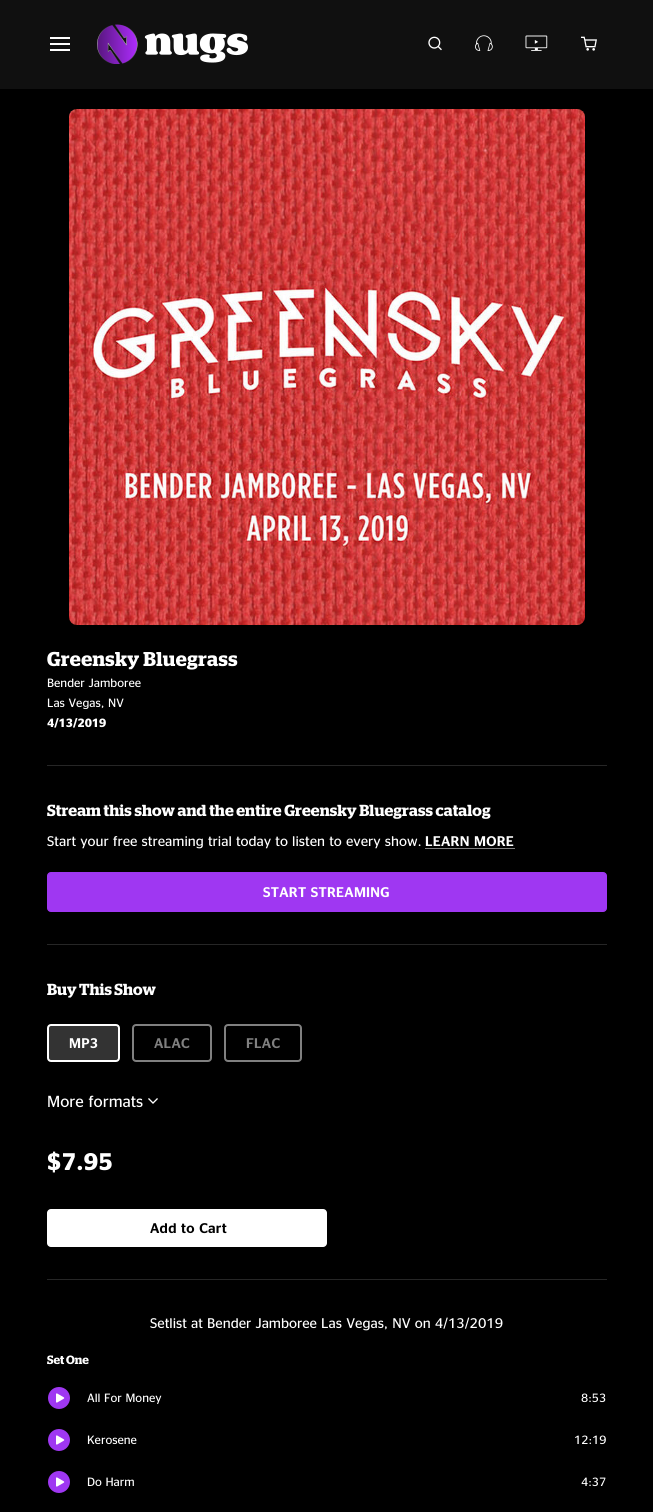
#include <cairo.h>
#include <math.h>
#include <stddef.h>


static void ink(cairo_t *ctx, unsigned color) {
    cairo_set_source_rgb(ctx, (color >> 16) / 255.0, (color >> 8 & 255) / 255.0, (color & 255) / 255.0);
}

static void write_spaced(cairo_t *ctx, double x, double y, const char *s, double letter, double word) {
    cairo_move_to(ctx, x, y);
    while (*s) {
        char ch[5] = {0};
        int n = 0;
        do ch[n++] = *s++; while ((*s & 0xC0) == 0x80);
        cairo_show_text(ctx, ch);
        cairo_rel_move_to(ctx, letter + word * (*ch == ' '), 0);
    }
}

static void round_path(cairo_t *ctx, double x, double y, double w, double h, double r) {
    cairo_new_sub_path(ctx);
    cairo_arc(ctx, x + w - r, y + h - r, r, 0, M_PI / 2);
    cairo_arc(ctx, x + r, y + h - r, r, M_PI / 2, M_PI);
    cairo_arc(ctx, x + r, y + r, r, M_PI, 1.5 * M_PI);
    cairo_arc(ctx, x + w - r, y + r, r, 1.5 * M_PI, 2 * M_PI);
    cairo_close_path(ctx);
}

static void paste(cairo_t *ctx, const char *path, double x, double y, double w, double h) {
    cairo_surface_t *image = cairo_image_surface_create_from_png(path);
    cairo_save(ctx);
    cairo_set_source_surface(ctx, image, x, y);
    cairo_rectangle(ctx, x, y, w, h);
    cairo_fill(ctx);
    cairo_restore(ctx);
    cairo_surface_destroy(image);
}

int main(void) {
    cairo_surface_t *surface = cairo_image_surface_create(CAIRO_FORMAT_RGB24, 653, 1512);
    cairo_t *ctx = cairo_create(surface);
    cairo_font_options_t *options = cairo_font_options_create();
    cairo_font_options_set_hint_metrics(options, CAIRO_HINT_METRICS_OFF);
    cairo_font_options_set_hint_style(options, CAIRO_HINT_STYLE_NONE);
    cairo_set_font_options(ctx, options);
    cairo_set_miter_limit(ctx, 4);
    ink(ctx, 0x000000);
    cairo_paint(ctx);
    ink(ctx, 0x101010);
    cairo_rectangle(ctx, 0, 0, 653, 89);
    cairo_fill(ctx);
    paste(ctx, "media/1.png", 50, 37, 20, 14);
    paste(ctx, "media/2.png", 97, 24, 151, 40);
    paste(ctx, "media/3.png", 428, 36, 14, 15);
    paste(ctx, "media/4.png", 475, 35, 18, 16);
    paste(ctx, "media/5.png", 525, 35, 23, 16);
    paste(ctx, "media/6.png", 581, 36, 16, 15);
    paste(ctx, "media/7.png", 69, 109, 516, 516);
    cairo_select_font_face(ctx, "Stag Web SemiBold", CAIRO_FONT_SLANT_NORMAL, CAIRO_FONT_WEIGHT_NORMAL);
    cairo_set_font_size(ctx, 20);
    ink(ctx, 0xFFFFFF);
    write_spaced(ctx, 47, 666, "Greensky Bluegrass", 0.4, 0);
    cairo_select_font_face(ctx, "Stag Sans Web", CAIRO_FONT_SLANT_NORMAL, CAIRO_FONT_WEIGHT_NORMAL);
    cairo_set_font_size(ctx, 12);
    cairo_move_to(ctx, 47, 687);
    cairo_show_text(ctx, "Bender Jamboree");
    cairo_move_to(ctx, 47, 707);
    cairo_show_text(ctx, "Las Vegas, NV");
    cairo_select_font_face(ctx, "Stag Sans Web SemiBold", CAIRO_FONT_SLANT_NORMAL, CAIRO_FONT_WEIGHT_NORMAL);
    cairo_move_to(ctx, 47, 727);
    cairo_show_text(ctx, "4/13/2019");
    ink(ctx, 0x262626);
    cairo_rectangle(ctx, 47, 944, 560, 1);
    cairo_fill(ctx);
    cairo_rectangle(ctx, 47, 765, 560, 1);
    cairo_fill(ctx);
    cairo_select_font_face(ctx, "Stag Web SemiBold", CAIRO_FONT_SLANT_NORMAL, CAIRO_FONT_WEIGHT_NORMAL);
    cairo_set_font_size(ctx, 16);
    ink(ctx, 0xFFFFFF);
    write_spaced(ctx, 47, 816, "Stream this show and the entire Greensky Bluegrass catalog", 0.1, 0);
    cairo_select_font_face(ctx, "Stag Sans Web", CAIRO_FONT_SLANT_NORMAL, CAIRO_FONT_WEIGHT_NORMAL);
    cairo_set_font_size(ctx, 14);
    cairo_move_to(ctx, 47, 846);
    cairo_show_text(ctx, "Start your free streaming trial today to listen to every show.");
    cairo_select_font_face(ctx, "Stag Sans Web Medium", CAIRO_FONT_SLANT_NORMAL, CAIRO_FONT_WEIGHT_NORMAL);
    write_spaced(ctx, 425, 846, "LEARN MORE", 0.25, 0);
    ink(ctx, 0x808080);
    cairo_rectangle(ctx, 425, 848, 90, 1);
    cairo_fill(ctx);
    ink(ctx, 0x9F37F2);
    round_path(ctx, 47.5, 872.5, 559, 39, 3.5);
    cairo_fill_preserve(ctx);
    cairo_set_line_width(ctx, 1);
    cairo_stroke(ctx);
    ink(ctx, 0xFFFFFF);
    write_spaced(ctx, 263, 897, "START STREAMING", 0.25, 0);
    cairo_select_font_face(ctx, "Stag Web SemiBold", CAIRO_FONT_SLANT_NORMAL, CAIRO_FONT_WEIGHT_NORMAL);
    cairo_set_font_size(ctx, 16);
    cairo_move_to(ctx, 47, 995);
    cairo_show_text(ctx, "Buy This Show");
    ink(ctx, 0x333333);
    round_path(ctx, 48, 1025, 71, 36, 3);
    cairo_fill_preserve(ctx);
    ink(ctx, 0xFFFFFF);
    cairo_set_line_width(ctx, 2);
    cairo_stroke(ctx);
    cairo_select_font_face(ctx, "Stag Sans Web Medium", CAIRO_FONT_SLANT_NORMAL, CAIRO_FONT_WEIGHT_NORMAL);
    cairo_set_font_size(ctx, 14);
    write_spaced(ctx, 69, 1048, "MP3", 0.25, 0);
    round_path(ctx, 133, 1025, 78, 36, 3);
    ink(ctx, 0x808080);
    cairo_stroke(ctx);
    write_spaced(ctx, 154, 1048, "ALAC", 0.25, 0);
    round_path(ctx, 225, 1025, 76, 36, 3);
    cairo_stroke(ctx);
    write_spaced(ctx, 246, 1048, "FLAC", 0.25, 0);
    cairo_select_font_face(ctx, "Stag Sans Web", CAIRO_FONT_SLANT_NORMAL, CAIRO_FONT_WEIGHT_NORMAL);
    cairo_set_font_size(ctx, 16);
    ink(ctx, 0xFFFFFF);
    cairo_move_to(ctx, 47, 1107);
    cairo_show_text(ctx, "More formats");
    paste(ctx, "media/8.png", 148, 1098, 10, 6);
    cairo_select_font_face(ctx, "Stag Sans Web SemiBold", CAIRO_FONT_SLANT_NORMAL, CAIRO_FONT_WEIGHT_NORMAL);
    cairo_set_font_size(ctx, 24);
    write_spaced(ctx, 47, 1170, "$7.95", 0.25, 0);
    ink(ctx, 0x262626);
    cairo_rectangle(ctx, 47, 1279, 560, 1);
    cairo_fill(ctx);
    ink(ctx, 0xFFFFFF);
    round_path(ctx, 47, 1209, 280, 38, 4);
    cairo_fill(ctx);
    cairo_select_font_face(ctx, "Stag Sans Web Medium", CAIRO_FONT_SLANT_NORMAL, CAIRO_FONT_WEIGHT_NORMAL);
    cairo_set_font_size(ctx, 14);
    ink(ctx, 0x000000);
    write_spaced(ctx, 150, 1233, "Add to Cart", 0.25, 0);
    cairo_select_font_face(ctx, "Stag Sans Web", CAIRO_FONT_SLANT_NORMAL, CAIRO_FONT_WEIGHT_NORMAL);
    ink(ctx, 0xFFFFFF);
    cairo_move_to(ctx, 150, 1328);
    cairo_show_text(ctx, "Setlist at Bender Jamboree Las Vegas, NV on 4/13/2019");
    cairo_select_font_face(ctx, "Stag Web SemiBold", CAIRO_FONT_SLANT_NORMAL, CAIRO_FONT_WEIGHT_NORMAL);
    cairo_set_font_size(ctx, 12);
    cairo_move_to(ctx, 47, 1364);
    cairo_show_text(ctx, "Set One");
    paste(ctx, "media/9.png", 48, 1387, 22, 22);
    cairo_select_font_face(ctx, "Stag Sans Web", CAIRO_FONT_SLANT_NORMAL, CAIRO_FONT_WEIGHT_NORMAL);
    cairo_move_to(ctx, 87, 1402);
    cairo_show_text(ctx, "All For Money");
    cairo_move_to(ctx, 581, 1402);
    cairo_show_text(ctx, "8:53");
    paste(ctx, "media/9.png", 48, 1429, 22, 22);
    cairo_move_to(ctx, 87, 1444);
    cairo_show_text(ctx, "Kerosene");
    cairo_move_to(ctx, 574, 1444);
    cairo_show_text(ctx, "12:19");
    paste(ctx, "media/9.png", 48, 1471, 22, 22);
    cairo_move_to(ctx, 87, 1486);
    cairo_show_text(ctx, "Do Harm");
    cairo_move_to(ctx, 581, 1486);
    cairo_show_text(ctx, "4:37");
    cairo_surface_write_to_png(surface, "image.png");
    cairo_font_options_destroy(options);
    cairo_destroy(ctx);
    cairo_surface_destroy(surface);
    return 0;
}
